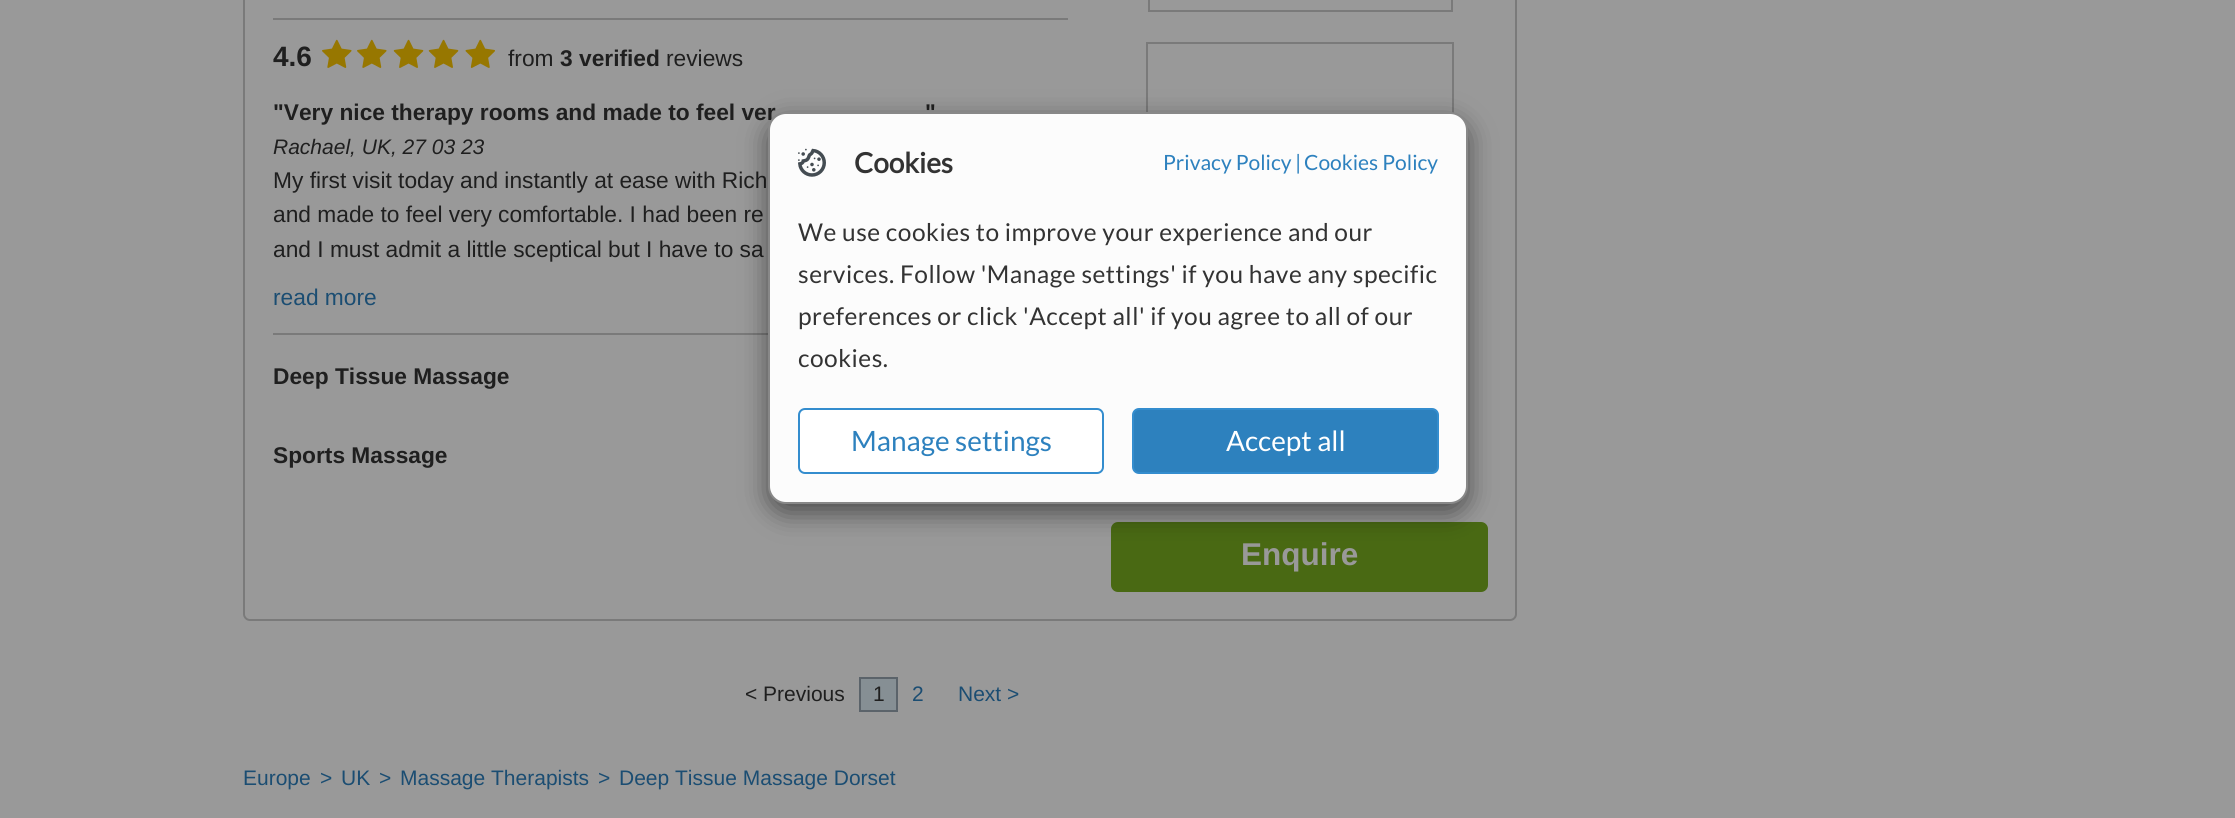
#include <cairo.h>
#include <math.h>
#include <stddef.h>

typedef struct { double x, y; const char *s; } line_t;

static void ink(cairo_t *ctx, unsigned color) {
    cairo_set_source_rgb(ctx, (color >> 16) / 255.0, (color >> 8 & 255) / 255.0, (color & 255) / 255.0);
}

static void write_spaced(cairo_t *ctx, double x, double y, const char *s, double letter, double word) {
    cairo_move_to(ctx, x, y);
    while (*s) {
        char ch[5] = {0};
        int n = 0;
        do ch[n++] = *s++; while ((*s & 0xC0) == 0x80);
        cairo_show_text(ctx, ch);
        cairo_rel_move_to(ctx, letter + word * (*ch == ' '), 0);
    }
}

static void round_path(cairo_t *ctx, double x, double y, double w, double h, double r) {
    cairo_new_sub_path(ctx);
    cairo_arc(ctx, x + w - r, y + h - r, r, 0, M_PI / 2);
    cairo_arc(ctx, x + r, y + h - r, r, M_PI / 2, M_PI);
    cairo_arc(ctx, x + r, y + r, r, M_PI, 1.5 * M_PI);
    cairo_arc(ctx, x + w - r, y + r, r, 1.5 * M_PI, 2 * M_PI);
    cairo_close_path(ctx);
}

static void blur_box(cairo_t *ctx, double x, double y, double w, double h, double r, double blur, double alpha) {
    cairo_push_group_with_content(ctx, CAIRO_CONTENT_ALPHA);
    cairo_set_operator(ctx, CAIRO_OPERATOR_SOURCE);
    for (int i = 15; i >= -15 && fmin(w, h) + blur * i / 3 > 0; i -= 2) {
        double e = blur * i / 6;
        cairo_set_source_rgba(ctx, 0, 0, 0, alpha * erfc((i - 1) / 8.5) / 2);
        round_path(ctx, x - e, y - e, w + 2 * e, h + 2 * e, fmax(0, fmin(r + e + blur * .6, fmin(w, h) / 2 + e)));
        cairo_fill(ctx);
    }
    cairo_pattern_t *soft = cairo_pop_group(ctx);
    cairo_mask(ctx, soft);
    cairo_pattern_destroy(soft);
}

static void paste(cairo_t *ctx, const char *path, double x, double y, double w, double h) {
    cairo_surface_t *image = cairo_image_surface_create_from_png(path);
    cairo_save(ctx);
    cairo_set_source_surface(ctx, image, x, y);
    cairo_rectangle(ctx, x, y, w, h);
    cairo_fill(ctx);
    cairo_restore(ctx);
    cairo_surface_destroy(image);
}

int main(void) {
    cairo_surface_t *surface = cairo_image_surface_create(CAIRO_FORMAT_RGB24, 2235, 818);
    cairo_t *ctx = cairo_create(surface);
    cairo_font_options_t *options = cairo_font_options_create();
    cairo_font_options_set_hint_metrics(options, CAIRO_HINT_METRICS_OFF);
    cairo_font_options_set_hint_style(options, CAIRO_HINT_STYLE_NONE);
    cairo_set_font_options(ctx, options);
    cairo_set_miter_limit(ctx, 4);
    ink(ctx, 0x999999);
    cairo_paint(ctx);
    round_path(ctx, 244, -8, 1272, 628, 6);
    ink(ctx, 0x7A7A7A);
    cairo_stroke(ctx);
    cairo_rectangle(ctx, 273, 18, 795, 2);
    cairo_fill(ctx);
    cairo_rectangle(ctx, 273, 333, 495, 2);
    cairo_fill(ctx);
    cairo_select_font_face(ctx, "Liberation Sans", CAIRO_FONT_SLANT_NORMAL, CAIRO_FONT_WEIGHT_BOLD);
    cairo_set_font_size(ctx, 28);
    ink(ctx, 0x1F1F1F);
    cairo_move_to(ctx, 273, 66);
    cairo_show_text(ctx, "4.6");
    paste(ctx, "media/1.png", 322, 39, 30, 29);
    paste(ctx, "media/1.png", 357, 39, 30, 29);
    paste(ctx, "media/2.png", 393, 39, 31, 29);
    paste(ctx, "media/2.png", 428, 39, 31, 29);
    paste(ctx, "media/3.png", 465, 39, 30, 29);
    cairo_select_font_face(ctx, "Liberation Sans", CAIRO_FONT_SLANT_NORMAL, CAIRO_FONT_WEIGHT_NORMAL);
    cairo_set_font_size(ctx, 22.75);
    cairo_move_to(ctx, 508, 66);
    cairo_show_text(ctx, "from");
    cairo_select_font_face(ctx, "Liberation Sans", CAIRO_FONT_SLANT_NORMAL, CAIRO_FONT_WEIGHT_BOLD);
    cairo_move_to(ctx, 560, 66);
    cairo_show_text(ctx, "3 verified");
    cairo_select_font_face(ctx, "Liberation Sans", CAIRO_FONT_SLANT_NORMAL, CAIRO_FONT_WEIGHT_NORMAL);
    cairo_move_to(ctx, 666, 66);
    cairo_show_text(ctx, "reviews");
    cairo_select_font_face(ctx, "Liberation Sans", CAIRO_FONT_SLANT_NORMAL, CAIRO_FONT_WEIGHT_BOLD);
    cairo_move_to(ctx, 273, 120);
    cairo_show_text(ctx, "\"Very nice therapy rooms and made to feel ver");
    cairo_move_to(ctx, 925, 120);
    cairo_show_text(ctx, "\"");
    cairo_select_font_face(ctx, "Liberation Sans", CAIRO_FONT_SLANT_ITALIC, CAIRO_FONT_WEIGHT_NORMAL);
    cairo_set_font_size(ctx, 21);
    cairo_move_to(ctx, 273, 154);
    cairo_show_text(ctx, "Rachael, UK, 27 03 23");
    cairo_select_font_face(ctx, "Liberation Sans", CAIRO_FONT_SLANT_NORMAL, CAIRO_FONT_WEIGHT_NORMAL);
    cairo_set_font_size(ctx, 22.75);
    {
        static const line_t items[] = {
            {273, 188, "My first visit today and instantly at ease with Rich"},
            {273, 222, "and made to feel very comfortable. I had been re"},
            {273, 257, "and I must admit a little sceptical but I have to sa"},
        };
        for (size_t i = 0; i < sizeof items / sizeof *items; i++) {
            cairo_move_to(ctx, items[i].x, items[i].y);
            cairo_show_text(ctx, items[i].s);
        }
    }
    ink(ctx, 0x1B4D72);
    cairo_move_to(ctx, 273, 305);
    cairo_show_text(ctx, "read more");
    cairo_select_font_face(ctx, "Liberation Sans", CAIRO_FONT_SLANT_NORMAL, CAIRO_FONT_WEIGHT_BOLD);
    ink(ctx, 0x1F1F1F);
    cairo_move_to(ctx, 273, 384);
    cairo_show_text(ctx, "Deep Tissue Massage");
    cairo_move_to(ctx, 273, 463);
    cairo_show_text(ctx, "Sports Massage");
    cairo_rectangle(ctx, 1149, -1, 303, 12);
    ink(ctx, 0x7A7A7A);
    cairo_stroke(ctx);
    cairo_rectangle(ctx, 1147, 43, 306, 408);
    cairo_stroke(ctx);
    ink(ctx, 0x496913);
    round_path(ctx, 1112, 523, 375, 68, 6);
    cairo_fill_preserve(ctx);
    cairo_stroke(ctx);
    cairo_set_font_size(ctx, 31.5);
    ink(ctx, 0x999999);
    cairo_move_to(ctx, 1241, 565);
    cairo_show_text(ctx, "Enquire");
    cairo_select_font_face(ctx, "Liberation Sans", CAIRO_FONT_SLANT_NORMAL, CAIRO_FONT_WEIGHT_NORMAL);
    cairo_set_font_size(ctx, 21);
    ink(ctx, 0x1F1F1F);
    cairo_move_to(ctx, 745, 701);
    cairo_show_text(ctx, "< Previous");
    ink(ctx, 0x868F94);
    cairo_rectangle(ctx, 860, 678, 37, 33);
    cairo_fill_preserve(ctx);
    ink(ctx, 0x5B636A);
    cairo_stroke(ctx);
    ink(ctx, 0x1F1F1F);
    cairo_move_to(ctx, 873, 701);
    cairo_show_text(ctx, "1");
    ink(ctx, 0x1B4D72);
    {
        static const line_t items[] = {
            {912, 701, "2"},
            {958, 701, "Next >"},
            {243, 785, "Europe"},
            {320, 785, ">"},
            {341, 785, "UK"},
            {379, 785, ">"},
            {400, 785, "Massage Therapists"},
            {598, 785, ">"},
            {619, 785, "Deep Tissue Massage Dorset"},
        };
        for (size_t i = 0; i < sizeof items / sizeof *items; i++) {
            cairo_move_to(ctx, items[i].x, items[i].y);
            cairo_show_text(ctx, items[i].s);
        }
    }
    ink(ctx, 0x000000);
    blur_box(ctx, 768, 121, 700, 392, 18, 13, 0.5);
    ink(ctx, 0xFCFCFC);
    round_path(ctx, 769, 113, 698, 390, 17);
    cairo_fill_preserve(ctx);
    ink(ctx, 0x888888);
    cairo_stroke(ctx);
    paste(ctx, "media/4.png", 798, 148, 28, 29);
    cairo_select_font_face(ctx, "Lato", CAIRO_FONT_SLANT_NORMAL, CAIRO_FONT_WEIGHT_BOLD);
    cairo_set_font_size(ctx, 28);
    ink(ctx, 0x333333);
    cairo_move_to(ctx, 854, 173);
    cairo_show_text(ctx, "Cookies");
    cairo_select_font_face(ctx, "Lato", CAIRO_FONT_SLANT_NORMAL, CAIRO_FONT_WEIGHT_NORMAL);
    cairo_set_font_size(ctx, 21);
    ink(ctx, 0x2D81BE);
    {
        static const line_t items[] = {
            {1163, 170, "Privacy Policy"},
            {1295, 170, "|"},
            {1304, 170, "Cookies Policy"},
        };
        for (size_t i = 0; i < sizeof items / sizeof *items; i++) {
            cairo_move_to(ctx, items[i].x, items[i].y);
            cairo_show_text(ctx, items[i].s);
        }
    }
    cairo_set_font_size(ctx, 24.5);
    ink(ctx, 0x333333);
    {
        static const line_t items[] = {
            {798, 241, "We use cookies to improve your experience and our"},
            {798, 283, "services. Follow 'Manage settings' if you have any specific"},
            {798, 325, "preferences or click 'Accept all' if you agree to all of our"},
            {798, 367, "cookies."},
        };
        for (size_t i = 0; i < sizeof items / sizeof *items; i++) {
            write_spaced(ctx, items[i].x, items[i].y, items[i].s, 0.5, 0);
        }
    }
    ink(ctx, 0xFFFFFF);
    round_path(ctx, 799, 409, 304, 64, 6);
    cairo_fill_preserve(ctx);
    ink(ctx, 0x348DCE);
    cairo_stroke(ctx);
    cairo_set_font_size(ctx, 28);
    ink(ctx, 0x2D81BE);
    cairo_move_to(ctx, 851, 451);
    cairo_show_text(ctx, "Manage settings");
    round_path(ctx, 1133, 409, 305, 64, 6);
    cairo_fill_preserve(ctx);
    ink(ctx, 0x348DCE);
    cairo_stroke(ctx);
    ink(ctx, 0xFFFFFF);
    cairo_move_to(ctx, 1226, 451);
    cairo_show_text(ctx, "Accept all");
    cairo_surface_write_to_png(surface, "image.png");
    cairo_font_options_destroy(options);
    cairo_destroy(ctx);
    cairo_surface_destroy(surface);
    return 0;
}
